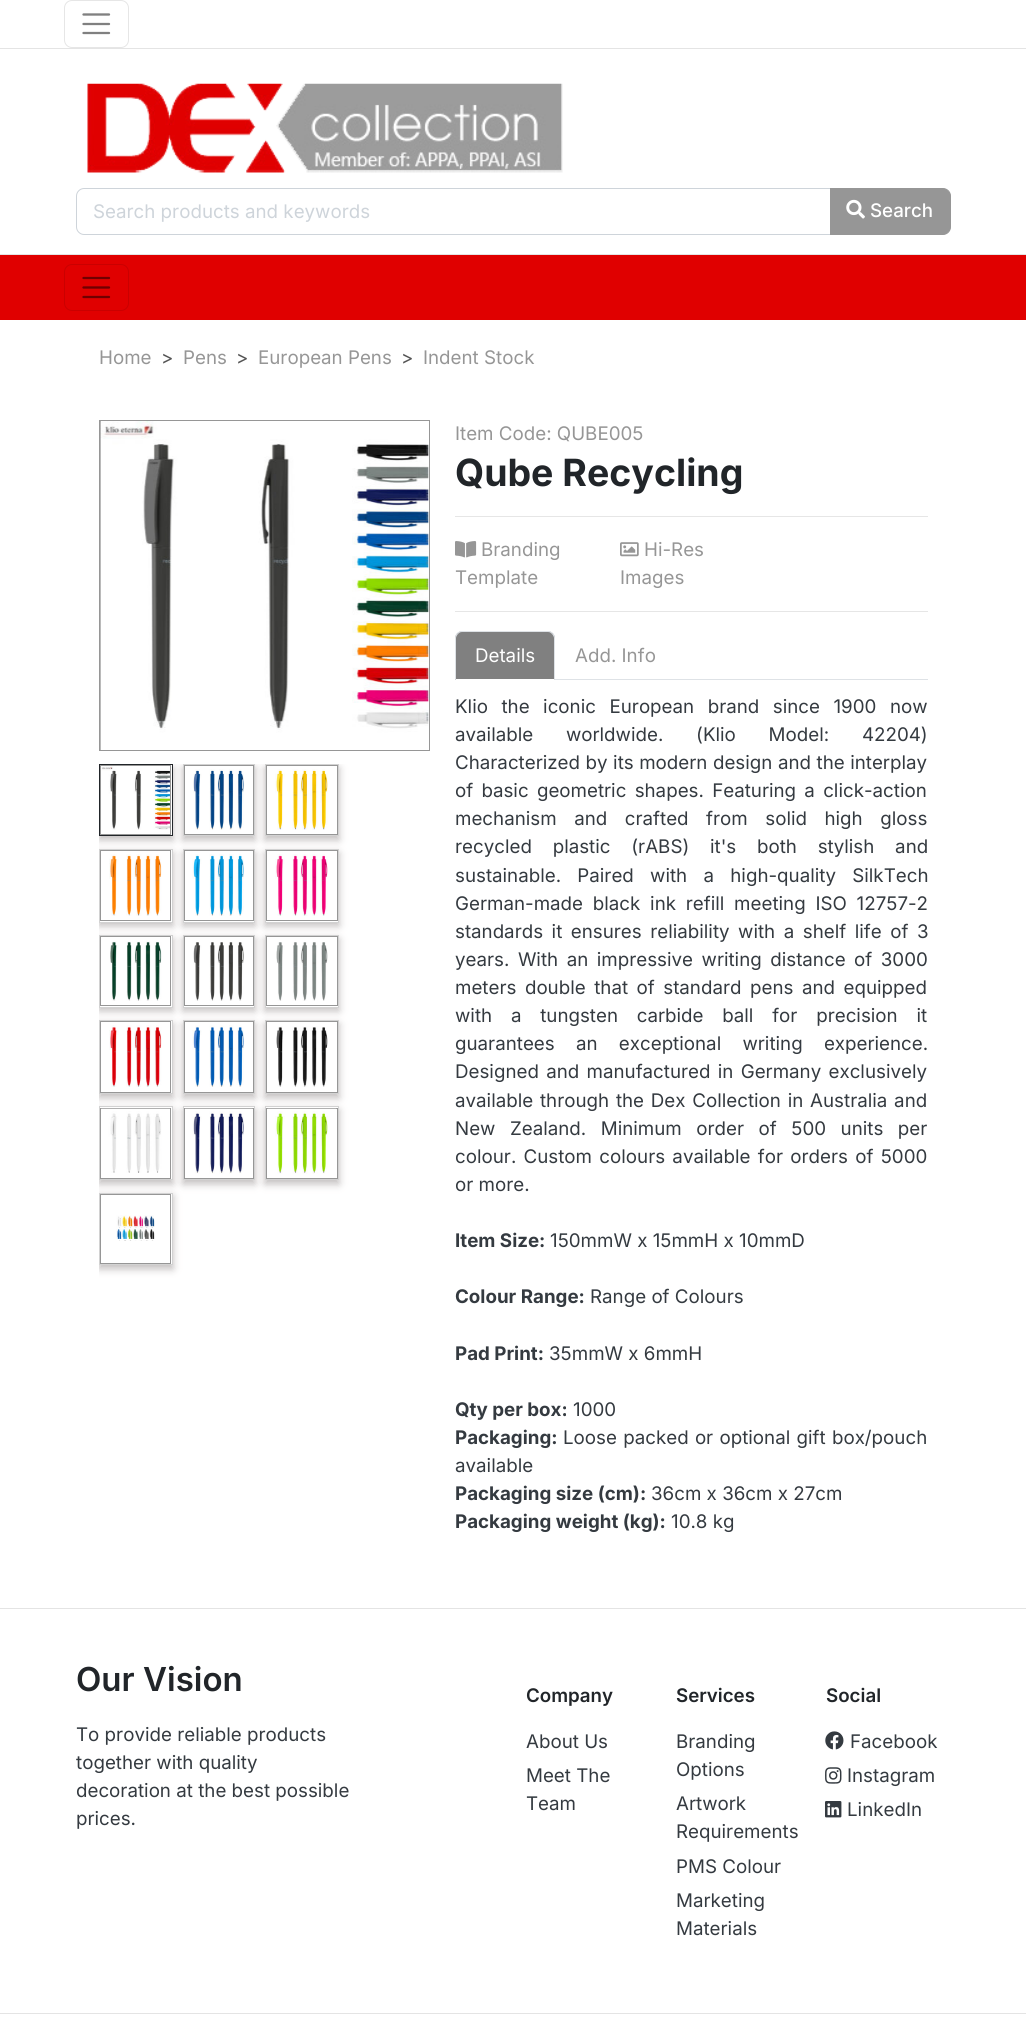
#include <cairo.h>
#include <math.h>
#include <stddef.h>

typedef struct { double x, y; const char *s; } line_t;

static void ink(cairo_t *ctx, unsigned color) {
    cairo_set_source_rgb(ctx, (color >> 16) / 255.0, (color >> 8 & 255) / 255.0, (color & 255) / 255.0);
}

static void write_spaced(cairo_t *ctx, double x, double y, const char *s, double letter, double word) {
    cairo_move_to(ctx, x, y);
    while (*s) {
        char ch[5] = {0};
        int n = 0;
        do ch[n++] = *s++; while ((*s & 0xC0) == 0x80);
        cairo_show_text(ctx, ch);
        cairo_rel_move_to(ctx, letter + word * (*ch == ' '), 0);
    }
}

static void round_path(cairo_t *ctx, double x, double y, double w, double h, double r) {
    cairo_new_sub_path(ctx);
    cairo_arc(ctx, x + w - r, y + h - r, r, 0, M_PI / 2);
    cairo_arc(ctx, x + r, y + h - r, r, M_PI / 2, M_PI);
    cairo_arc(ctx, x + r, y + r, r, M_PI, 1.5 * M_PI);
    cairo_arc(ctx, x + w - r, y + r, r, 1.5 * M_PI, 2 * M_PI);
    cairo_close_path(ctx);
}

static void blur_box(cairo_t *ctx, double x, double y, double w, double h, double r, double blur, double alpha) {
    cairo_push_group_with_content(ctx, CAIRO_CONTENT_ALPHA);
    cairo_set_operator(ctx, CAIRO_OPERATOR_SOURCE);
    for (int i = 15; i >= -15 && fmin(w, h) + blur * i / 3 > 0; i -= 2) {
        double e = blur * i / 6;
        cairo_set_source_rgba(ctx, 0, 0, 0, alpha * erfc((i - 1) / 8.5) / 2);
        round_path(ctx, x - e, y - e, w + 2 * e, h + 2 * e, fmax(0, fmin(r + e + blur * .6, fmin(w, h) / 2 + e)));
        cairo_fill(ctx);
    }
    cairo_pattern_t *soft = cairo_pop_group(ctx);
    cairo_mask(ctx, soft);
    cairo_pattern_destroy(soft);
}

static void paste(cairo_t *ctx, const char *path, double x, double y, double w, double h) {
    cairo_surface_t *image = cairo_image_surface_create_from_png(path);
    cairo_save(ctx);
    cairo_set_source_surface(ctx, image, x, y);
    cairo_rectangle(ctx, x, y, w, h);
    cairo_fill(ctx);
    cairo_restore(ctx);
    cairo_surface_destroy(image);
}

int main(void) {
    cairo_surface_t *surface = cairo_image_surface_create(CAIRO_FORMAT_RGB24, 1026, 2020);
    cairo_t *ctx = cairo_create(surface);
    cairo_font_options_t *options = cairo_font_options_create();
    cairo_font_options_set_hint_metrics(options, CAIRO_HINT_METRICS_OFF);
    cairo_font_options_set_hint_style(options, CAIRO_HINT_STYLE_NONE);
    cairo_set_font_options(ctx, options);
    cairo_set_miter_limit(ctx, 4);
    ink(ctx, 0xFFFFFF);
    cairo_paint(ctx);
    ink(ctx, 0xE4E4E4);
    cairo_rectangle(ctx, 0, 48, 1026, 1);
    cairo_fill(ctx);
    round_path(ctx, 64.5, 0.5, 64, 47, 7.5);
    ink(ctx, 0xE6E6E6);
    cairo_set_line_width(ctx, 1);
    cairo_stroke(ctx);
    cairo_new_path(ctx);
    cairo_move_to(ctx, 83.5, 14.5);
    cairo_line_to(ctx, 109, 14.5);
    cairo_move_to(ctx, 83.5, 24);
    cairo_line_to(ctx, 109, 24);
    cairo_move_to(ctx, 83.5, 33);
    cairo_line_to(ctx, 109, 33);
    ink(ctx, 0x808080);
    cairo_set_line_width(ctx, 2.3);
    cairo_set_line_cap(ctx, CAIRO_LINE_CAP_ROUND);
    cairo_stroke(ctx);
    ink(ctx, 0xE4E4E4);
    cairo_rectangle(ctx, 0, 254, 1026, 1);
    cairo_fill(ctx);
    paste(ctx, "media/1.png", 87, 83, 476, 90);
    cairo_new_path(ctx);
    cairo_move_to(ctx, 84, 188.5);
    cairo_line_to(ctx, 830.5, 188.5);
    cairo_line_to(ctx, 830.5, 234.5);
    cairo_line_to(ctx, 84, 234.5);
    cairo_curve_to(ctx, 80, 234.5, 76.5, 231, 76.5, 227);
    cairo_line_to(ctx, 76.5, 196);
    cairo_curve_to(ctx, 76.5, 192, 80, 188.5, 84, 188.5);
    cairo_close_path(ctx);
    ink(ctx, 0xCED4DA);
    cairo_set_line_width(ctx, 1);
    cairo_set_line_cap(ctx, CAIRO_LINE_CAP_BUTT);
    cairo_stroke(ctx);
    cairo_select_font_face(ctx, "Inter", CAIRO_FONT_SLANT_NORMAL, CAIRO_FONT_WEIGHT_NORMAL);
    cairo_set_font_size(ctx, 18.75);
    cairo_move_to(ctx, 93, 218);
    cairo_show_text(ctx, "Search products and keywords");
    ink(ctx, 0x969696);
    cairo_new_path(ctx);
    cairo_move_to(ctx, 830.5, 188.5);
    cairo_line_to(ctx, 943, 188.5);
    cairo_curve_to(ctx, 947, 188.5, 950.5, 192, 950.5, 196);
    cairo_line_to(ctx, 950.5, 227);
    cairo_curve_to(ctx, 950.5, 231, 947, 234.5, 943, 234.5);
    cairo_line_to(ctx, 830.5, 234.5);
    cairo_close_path(ctx);
    cairo_fill_preserve(ctx);
    cairo_stroke(ctx);
    paste(ctx, "media/2.png", 846, 199, 19, 20);
    cairo_select_font_face(ctx, "Inter Medium", CAIRO_FONT_SLANT_NORMAL, CAIRO_FONT_WEIGHT_NORMAL);
    ink(ctx, 0xFFFFFF);
    cairo_move_to(ctx, 870, 217);
    cairo_show_text(ctx, "Search");
    ink(ctx, 0xE00000);
    cairo_rectangle(ctx, 0, 255, 1026, 65);
    cairo_fill(ctx);
    round_path(ctx, 64.5, 264.5, 64, 46, 7.5);
    ink(ctx, 0xCA0000);
    cairo_stroke(ctx);
    cairo_new_path(ctx);
    cairo_move_to(ctx, 83.5, 278);
    cairo_line_to(ctx, 109, 278);
    cairo_move_to(ctx, 83.5, 287.5);
    cairo_line_to(ctx, 109, 287.5);
    cairo_move_to(ctx, 83.5, 297);
    cairo_line_to(ctx, 109, 297);
    ink(ctx, 0x700000);
    cairo_set_line_width(ctx, 2.3);
    cairo_set_line_cap(ctx, CAIRO_LINE_CAP_ROUND);
    cairo_stroke(ctx);
    cairo_select_font_face(ctx, "Inter", CAIRO_FONT_SLANT_NORMAL, CAIRO_FONT_WEIGHT_NORMAL);
    ink(ctx, 0x969696);
    cairo_move_to(ctx, 99, 364);
    cairo_show_text(ctx, "Home");
    ink(ctx, 0x545454);
    cairo_move_to(ctx, 161, 364);
    cairo_show_text(ctx, ">");
    ink(ctx, 0x969696);
    cairo_move_to(ctx, 183, 364);
    cairo_show_text(ctx, "Pens");
    ink(ctx, 0x545454);
    cairo_move_to(ctx, 236, 364);
    cairo_show_text(ctx, ">");
    ink(ctx, 0x969696);
    cairo_move_to(ctx, 258, 364);
    cairo_show_text(ctx, "European Pens");
    ink(ctx, 0x545454);
    cairo_move_to(ctx, 401, 364);
    cairo_show_text(ctx, ">");
    ink(ctx, 0x969696);
    cairo_move_to(ctx, 423, 364);
    cairo_show_text(ctx, "Indent Stock");
    cairo_save(ctx);
    cairo_rectangle(ctx, 99, 420, 331, 331);
    cairo_clip(ctx);
    cairo_rectangle(ctx, -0.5, 420.5, 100, 330);
    cairo_set_line_width(ctx, 1);
    cairo_set_line_cap(ctx, CAIRO_LINE_CAP_BUTT);
    cairo_stroke(ctx);
    cairo_restore(ctx);
    cairo_rectangle(ctx, 100.5, 420.5, 329, 330);
    cairo_set_line_width(ctx, 1);
    cairo_set_line_cap(ctx, CAIRO_LINE_CAP_BUTT);
    cairo_stroke(ctx);
    paste(ctx, "media/3.png", 100, 421, 329, 329);
    cairo_save(ctx);
    cairo_rectangle(ctx, 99, 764, 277, 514);
    cairo_clip(ctx);
    cairo_set_fill_rule(ctx, CAIRO_FILL_RULE_EVEN_ODD);
    cairo_new_path(ctx);
    cairo_move_to(ctx, 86, 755);
    cairo_line_to(ctx, 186, 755);
    cairo_line_to(ctx, 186, 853);
    cairo_line_to(ctx, 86, 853);
    cairo_close_path(ctx);
    cairo_move_to(ctx, 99, 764);
    cairo_line_to(ctx, 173, 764);
    cairo_line_to(ctx, 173, 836);
    cairo_line_to(ctx, 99, 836);
    cairo_close_path(ctx);
    cairo_clip(ctx);
    ink(ctx, 0x867E7E);
    blur_box(ctx, 99, 768, 74, 72, 0, 4, 0.5);
    cairo_restore(ctx);
    cairo_rectangle(ctx, 99.5, 764.5, 73, 71);
    ink(ctx, 0x212529);
    cairo_stroke(ctx);
    cairo_rectangle(ctx, 100.5, 765.5, 70, 69);
    ink(ctx, 0x969696);
    cairo_stroke(ctx);
    paste(ctx, "media/4.png", 101, 766, 69, 64);
    cairo_save(ctx);
    cairo_rectangle(ctx, 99, 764, 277, 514);
    cairo_clip(ctx);
    cairo_set_fill_rule(ctx, CAIRO_FILL_RULE_EVEN_ODD);
    cairo_new_path(ctx);
    cairo_move_to(ctx, 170, 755);
    cairo_line_to(ctx, 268, 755);
    cairo_line_to(ctx, 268, 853);
    cairo_line_to(ctx, 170, 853);
    cairo_close_path(ctx);
    cairo_move_to(ctx, 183, 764);
    cairo_line_to(ctx, 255, 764);
    cairo_line_to(ctx, 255, 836);
    cairo_line_to(ctx, 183, 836);
    cairo_close_path(ctx);
    cairo_clip(ctx);
    ink(ctx, 0x867E7E);
    blur_box(ctx, 183, 768, 72, 72, 0, 4, 0.5);
    cairo_restore(ctx);
    cairo_rectangle(ctx, 183.5, 764.5, 71, 71);
    ink(ctx, 0xD2D2D2);
    cairo_stroke(ctx);
    cairo_rectangle(ctx, 184.5, 765.5, 69, 69);
    ink(ctx, 0x969696);
    cairo_stroke(ctx);
    paste(ctx, "media/5.png", 193, 769, 51, 61);
    cairo_save(ctx);
    cairo_rectangle(ctx, 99, 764, 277, 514);
    cairo_clip(ctx);
    cairo_set_fill_rule(ctx, CAIRO_FILL_RULE_EVEN_ODD);
    cairo_new_path(ctx);
    cairo_move_to(ctx, 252, 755);
    cairo_line_to(ctx, 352, 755);
    cairo_line_to(ctx, 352, 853);
    cairo_line_to(ctx, 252, 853);
    cairo_close_path(ctx);
    cairo_move_to(ctx, 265, 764);
    cairo_line_to(ctx, 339, 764);
    cairo_line_to(ctx, 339, 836);
    cairo_line_to(ctx, 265, 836);
    cairo_close_path(ctx);
    cairo_clip(ctx);
    ink(ctx, 0x867E7E);
    blur_box(ctx, 265, 768, 74, 72, 0, 4, 0.5);
    cairo_restore(ctx);
    cairo_rectangle(ctx, 265.5, 764.5, 73, 71);
    ink(ctx, 0xD2D2D2);
    cairo_stroke(ctx);
    cairo_rectangle(ctx, 266.5, 765.5, 71, 69);
    ink(ctx, 0x969696);
    cairo_stroke(ctx);
    paste(ctx, "media/6.png", 275, 769, 53, 61);
    cairo_save(ctx);
    cairo_rectangle(ctx, 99, 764, 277, 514);
    cairo_clip(ctx);
    cairo_set_fill_rule(ctx, CAIRO_FILL_RULE_EVEN_ODD);
    cairo_new_path(ctx);
    cairo_move_to(ctx, 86, 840);
    cairo_line_to(ctx, 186, 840);
    cairo_line_to(ctx, 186, 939);
    cairo_line_to(ctx, 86, 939);
    cairo_close_path(ctx);
    cairo_move_to(ctx, 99, 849);
    cairo_line_to(ctx, 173, 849);
    cairo_line_to(ctx, 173, 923);
    cairo_line_to(ctx, 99, 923);
    cairo_close_path(ctx);
    cairo_clip(ctx);
    ink(ctx, 0x867E7E);
    blur_box(ctx, 99, 853, 74, 73, 0, 4, 0.5);
    cairo_restore(ctx);
    cairo_rectangle(ctx, 99.5, 849.5, 73, 73);
    ink(ctx, 0xD2D2D2);
    cairo_stroke(ctx);
    cairo_rectangle(ctx, 100.5, 850.5, 70, 70);
    ink(ctx, 0x969696);
    cairo_stroke(ctx);
    paste(ctx, "media/7.png", 109, 854, 53, 62);
    cairo_save(ctx);
    cairo_set_fill_rule(ctx, CAIRO_FILL_RULE_EVEN_ODD);
    cairo_new_path(ctx);
    cairo_move_to(ctx, 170, 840);
    cairo_line_to(ctx, 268, 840);
    cairo_line_to(ctx, 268, 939);
    cairo_line_to(ctx, 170, 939);
    cairo_close_path(ctx);
    cairo_move_to(ctx, 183, 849);
    cairo_line_to(ctx, 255, 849);
    cairo_line_to(ctx, 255, 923);
    cairo_line_to(ctx, 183, 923);
    cairo_close_path(ctx);
    cairo_clip(ctx);
    ink(ctx, 0x867E7E);
    blur_box(ctx, 183, 853, 72, 73, 0, 4, 0.5);
    cairo_restore(ctx);
    cairo_rectangle(ctx, 183.5, 849.5, 71, 73);
    ink(ctx, 0xD2D2D2);
    cairo_stroke(ctx);
    cairo_rectangle(ctx, 184.5, 850.5, 69, 70);
    ink(ctx, 0x969696);
    cairo_stroke(ctx);
    paste(ctx, "media/8.png", 192, 854, 52, 62);
    cairo_save(ctx);
    cairo_set_fill_rule(ctx, CAIRO_FILL_RULE_EVEN_ODD);
    cairo_new_path(ctx);
    cairo_move_to(ctx, 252, 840);
    cairo_line_to(ctx, 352, 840);
    cairo_line_to(ctx, 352, 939);
    cairo_line_to(ctx, 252, 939);
    cairo_close_path(ctx);
    cairo_move_to(ctx, 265, 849);
    cairo_line_to(ctx, 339, 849);
    cairo_line_to(ctx, 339, 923);
    cairo_line_to(ctx, 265, 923);
    cairo_close_path(ctx);
    cairo_clip(ctx);
    ink(ctx, 0x867E7E);
    blur_box(ctx, 265, 853, 74, 73, 0, 4, 0.5);
    cairo_restore(ctx);
    cairo_rectangle(ctx, 265.5, 849.5, 73, 73);
    ink(ctx, 0xD2D2D2);
    cairo_stroke(ctx);
    cairo_rectangle(ctx, 266.5, 850.5, 71, 70);
    ink(ctx, 0x969696);
    cairo_stroke(ctx);
    paste(ctx, "media/9.png", 275, 854, 53, 62);
    cairo_save(ctx);
    cairo_rectangle(ctx, 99, 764, 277, 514);
    cairo_clip(ctx);
    cairo_set_fill_rule(ctx, CAIRO_FILL_RULE_EVEN_ODD);
    cairo_new_path(ctx);
    cairo_move_to(ctx, 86, 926);
    cairo_line_to(ctx, 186, 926);
    cairo_line_to(ctx, 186, 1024);
    cairo_line_to(ctx, 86, 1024);
    cairo_close_path(ctx);
    cairo_move_to(ctx, 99, 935);
    cairo_line_to(ctx, 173, 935);
    cairo_line_to(ctx, 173, 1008);
    cairo_line_to(ctx, 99, 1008);
    cairo_close_path(ctx);
    cairo_clip(ctx);
    ink(ctx, 0x867E7E);
    blur_box(ctx, 99, 939, 74, 72, 0, 4, 0.5);
    cairo_restore(ctx);
    cairo_rectangle(ctx, 99.5, 935.5, 73, 72);
    ink(ctx, 0xD2D2D2);
    cairo_stroke(ctx);
    cairo_rectangle(ctx, 100.5, 936.5, 70, 69);
    ink(ctx, 0x969696);
    cairo_stroke(ctx);
    paste(ctx, "media/10.png", 110, 941, 52, 60);
    cairo_save(ctx);
    cairo_set_fill_rule(ctx, CAIRO_FILL_RULE_EVEN_ODD);
    cairo_new_path(ctx);
    cairo_move_to(ctx, 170, 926);
    cairo_line_to(ctx, 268, 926);
    cairo_line_to(ctx, 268, 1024);
    cairo_line_to(ctx, 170, 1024);
    cairo_close_path(ctx);
    cairo_move_to(ctx, 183, 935);
    cairo_line_to(ctx, 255, 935);
    cairo_line_to(ctx, 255, 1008);
    cairo_line_to(ctx, 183, 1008);
    cairo_close_path(ctx);
    cairo_clip(ctx);
    ink(ctx, 0x867E7E);
    blur_box(ctx, 183, 939, 72, 72, 0, 4, 0.5);
    cairo_restore(ctx);
    cairo_rectangle(ctx, 183.5, 935.5, 71, 72);
    ink(ctx, 0xD2D2D2);
    cairo_stroke(ctx);
    cairo_rectangle(ctx, 184.5, 936.5, 69, 69);
    ink(ctx, 0x969696);
    cairo_stroke(ctx);
    paste(ctx, "media/11.png", 193, 942, 51, 59);
    cairo_save(ctx);
    cairo_set_fill_rule(ctx, CAIRO_FILL_RULE_EVEN_ODD);
    cairo_new_path(ctx);
    cairo_move_to(ctx, 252, 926);
    cairo_line_to(ctx, 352, 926);
    cairo_line_to(ctx, 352, 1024);
    cairo_line_to(ctx, 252, 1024);
    cairo_close_path(ctx);
    cairo_move_to(ctx, 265, 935);
    cairo_line_to(ctx, 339, 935);
    cairo_line_to(ctx, 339, 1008);
    cairo_line_to(ctx, 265, 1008);
    cairo_close_path(ctx);
    cairo_clip(ctx);
    ink(ctx, 0x867E7E);
    blur_box(ctx, 265, 939, 74, 72, 0, 4, 0.5);
    cairo_restore(ctx);
    cairo_rectangle(ctx, 265.5, 935.5, 73, 72);
    ink(ctx, 0xD2D2D2);
    cairo_stroke(ctx);
    cairo_rectangle(ctx, 266.5, 936.5, 71, 69);
    ink(ctx, 0x969696);
    cairo_stroke(ctx);
    paste(ctx, "media/12.png", 276, 942, 52, 59);
    cairo_save(ctx);
    cairo_rectangle(ctx, 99, 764, 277, 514);
    cairo_clip(ctx);
    cairo_set_fill_rule(ctx, CAIRO_FILL_RULE_EVEN_ODD);
    cairo_new_path(ctx);
    cairo_move_to(ctx, 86, 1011);
    cairo_line_to(ctx, 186, 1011);
    cairo_line_to(ctx, 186, 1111);
    cairo_line_to(ctx, 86, 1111);
    cairo_close_path(ctx);
    cairo_move_to(ctx, 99, 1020);
    cairo_line_to(ctx, 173, 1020);
    cairo_line_to(ctx, 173, 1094);
    cairo_line_to(ctx, 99, 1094);
    cairo_close_path(ctx);
    cairo_clip(ctx);
    ink(ctx, 0x867E7E);
    blur_box(ctx, 99, 1024, 74, 74, 0, 4, 0.5);
    cairo_restore(ctx);
    cairo_rectangle(ctx, 99.5, 1020.5, 73, 73);
    ink(ctx, 0xD2D2D2);
    cairo_stroke(ctx);
    cairo_rectangle(ctx, 100.5, 1021.5, 70, 71);
    ink(ctx, 0x969696);
    cairo_stroke(ctx);
    paste(ctx, "media/13.png", 109, 1025, 53, 62);
    cairo_save(ctx);
    cairo_set_fill_rule(ctx, CAIRO_FILL_RULE_EVEN_ODD);
    cairo_new_path(ctx);
    cairo_move_to(ctx, 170, 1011);
    cairo_line_to(ctx, 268, 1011);
    cairo_line_to(ctx, 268, 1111);
    cairo_line_to(ctx, 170, 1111);
    cairo_close_path(ctx);
    cairo_move_to(ctx, 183, 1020);
    cairo_line_to(ctx, 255, 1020);
    cairo_line_to(ctx, 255, 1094);
    cairo_line_to(ctx, 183, 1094);
    cairo_close_path(ctx);
    cairo_clip(ctx);
    ink(ctx, 0x867E7E);
    blur_box(ctx, 183, 1024, 72, 74, 0, 4, 0.5);
    cairo_restore(ctx);
    cairo_rectangle(ctx, 183.5, 1020.5, 71, 73);
    ink(ctx, 0xD2D2D2);
    cairo_stroke(ctx);
    cairo_rectangle(ctx, 184.5, 1021.5, 69, 71);
    ink(ctx, 0x969696);
    cairo_stroke(ctx);
    paste(ctx, "media/14.png", 192, 1025, 52, 62);
    cairo_save(ctx);
    cairo_set_fill_rule(ctx, CAIRO_FILL_RULE_EVEN_ODD);
    cairo_new_path(ctx);
    cairo_move_to(ctx, 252, 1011);
    cairo_line_to(ctx, 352, 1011);
    cairo_line_to(ctx, 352, 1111);
    cairo_line_to(ctx, 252, 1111);
    cairo_close_path(ctx);
    cairo_move_to(ctx, 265, 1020);
    cairo_line_to(ctx, 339, 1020);
    cairo_line_to(ctx, 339, 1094);
    cairo_line_to(ctx, 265, 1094);
    cairo_close_path(ctx);
    cairo_clip(ctx);
    ink(ctx, 0x867E7E);
    blur_box(ctx, 265, 1024, 74, 74, 0, 4, 0.5);
    cairo_restore(ctx);
    cairo_rectangle(ctx, 265.5, 1020.5, 73, 73);
    ink(ctx, 0xD2D2D2);
    cairo_stroke(ctx);
    cairo_rectangle(ctx, 266.5, 1021.5, 71, 71);
    ink(ctx, 0x969696);
    cairo_stroke(ctx);
    paste(ctx, "media/15.png", 276, 1026, 52, 61);
    cairo_save(ctx);
    cairo_rectangle(ctx, 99, 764, 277, 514);
    cairo_clip(ctx);
    cairo_set_fill_rule(ctx, CAIRO_FILL_RULE_EVEN_ODD);
    cairo_new_path(ctx);
    cairo_move_to(ctx, 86, 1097);
    cairo_line_to(ctx, 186, 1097);
    cairo_line_to(ctx, 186, 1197);
    cairo_line_to(ctx, 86, 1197);
    cairo_close_path(ctx);
    cairo_move_to(ctx, 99, 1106);
    cairo_line_to(ctx, 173, 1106);
    cairo_line_to(ctx, 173, 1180);
    cairo_line_to(ctx, 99, 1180);
    cairo_close_path(ctx);
    cairo_clip(ctx);
    ink(ctx, 0x867E7E);
    blur_box(ctx, 99, 1110, 74, 74, 0, 4, 0.5);
    cairo_restore(ctx);
    cairo_rectangle(ctx, 99.5, 1106.5, 73, 73);
    ink(ctx, 0xD2D2D2);
    cairo_stroke(ctx);
    cairo_rectangle(ctx, 100.5, 1108.5, 70, 70);
    ink(ctx, 0x969696);
    cairo_stroke(ctx);
    paste(ctx, "media/16.png", 101, 1108, 69, 65);
    cairo_save(ctx);
    cairo_set_fill_rule(ctx, CAIRO_FILL_RULE_EVEN_ODD);
    cairo_new_path(ctx);
    cairo_move_to(ctx, 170, 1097);
    cairo_line_to(ctx, 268, 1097);
    cairo_line_to(ctx, 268, 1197);
    cairo_line_to(ctx, 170, 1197);
    cairo_close_path(ctx);
    cairo_move_to(ctx, 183, 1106);
    cairo_line_to(ctx, 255, 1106);
    cairo_line_to(ctx, 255, 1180);
    cairo_line_to(ctx, 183, 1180);
    cairo_close_path(ctx);
    cairo_clip(ctx);
    ink(ctx, 0x867E7E);
    blur_box(ctx, 183, 1110, 72, 74, 0, 4, 0.5);
    cairo_restore(ctx);
    cairo_rectangle(ctx, 183.5, 1106.5, 71, 73);
    ink(ctx, 0xD2D2D2);
    cairo_stroke(ctx);
    cairo_rectangle(ctx, 184.5, 1108.5, 69, 70);
    ink(ctx, 0x969696);
    cairo_stroke(ctx);
    paste(ctx, "media/17.png", 185, 1108, 68, 66);
    cairo_save(ctx);
    cairo_set_fill_rule(ctx, CAIRO_FILL_RULE_EVEN_ODD);
    cairo_new_path(ctx);
    cairo_move_to(ctx, 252, 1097);
    cairo_line_to(ctx, 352, 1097);
    cairo_line_to(ctx, 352, 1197);
    cairo_line_to(ctx, 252, 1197);
    cairo_close_path(ctx);
    cairo_move_to(ctx, 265, 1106);
    cairo_line_to(ctx, 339, 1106);
    cairo_line_to(ctx, 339, 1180);
    cairo_line_to(ctx, 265, 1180);
    cairo_close_path(ctx);
    cairo_clip(ctx);
    ink(ctx, 0x867E7E);
    blur_box(ctx, 265, 1110, 74, 74, 0, 4, 0.5);
    cairo_restore(ctx);
    cairo_rectangle(ctx, 265.5, 1106.5, 73, 73);
    ink(ctx, 0xD2D2D2);
    cairo_stroke(ctx);
    cairo_rectangle(ctx, 266.5, 1108.5, 71, 70);
    ink(ctx, 0x969696);
    cairo_stroke(ctx);
    paste(ctx, "media/18.png", 267, 1108, 70, 66);
    cairo_save(ctx);
    cairo_rectangle(ctx, 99, 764, 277, 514);
    cairo_clip(ctx);
    cairo_set_fill_rule(ctx, CAIRO_FILL_RULE_EVEN_ODD);
    cairo_new_path(ctx);
    cairo_move_to(ctx, 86, 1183);
    cairo_line_to(ctx, 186, 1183);
    cairo_line_to(ctx, 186, 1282);
    cairo_line_to(ctx, 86, 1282);
    cairo_close_path(ctx);
    cairo_move_to(ctx, 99, 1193);
    cairo_line_to(ctx, 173, 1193);
    cairo_line_to(ctx, 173, 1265);
    cairo_line_to(ctx, 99, 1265);
    cairo_close_path(ctx);
    cairo_clip(ctx);
    ink(ctx, 0x867E7E);
    blur_box(ctx, 99, 1196, 74, 73, 0, 4, 0.5);
    cairo_restore(ctx);
    cairo_rectangle(ctx, 99.5, 1193.5, 73, 71);
    ink(ctx, 0xD2D2D2);
    cairo_stroke(ctx);
    cairo_rectangle(ctx, 100.5, 1194.5, 70, 69);
    ink(ctx, 0x969696);
    cairo_stroke(ctx);
    paste(ctx, "media/19.png", 116, 1215, 39, 26);
    cairo_move_to(ctx, 455, 440);
    cairo_show_text(ctx, "Item Code: QUBE005");
    cairo_select_font_face(ctx, "Inter", CAIRO_FONT_SLANT_NORMAL, CAIRO_FONT_WEIGHT_BOLD);
    cairo_set_font_size(ctx, 37.5);
    ink(ctx, 0x212529);
    cairo_move_to(ctx, 455, 486);
    cairo_show_text(ctx, "Qube Recycling");
    ink(ctx, 0xE6E6E6);
    cairo_rectangle(ctx, 455, 516, 473, 1);
    cairo_fill(ctx);
    paste(ctx, "media/20.png", 455, 541, 22, 17);
    cairo_select_font_face(ctx, "Inter", CAIRO_FONT_SLANT_NORMAL, CAIRO_FONT_WEIGHT_NORMAL);
    cairo_set_font_size(ctx, 18.75);
    ink(ctx, 0x969696);
    cairo_move_to(ctx, 481, 556);
    cairo_show_text(ctx, "Branding");
    cairo_move_to(ctx, 455, 584);
    cairo_show_text(ctx, "Template");
    paste(ctx, "media/21.png", 620, 542, 19, 15);
    cairo_move_to(ctx, 644, 556);
    cairo_show_text(ctx, "Hi-Res");
    cairo_move_to(ctx, 620, 584);
    cairo_show_text(ctx, "Images");
    ink(ctx, 0xE6E6E6);
    cairo_rectangle(ctx, 455, 611, 473, 1);
    cairo_fill(ctx);
    ink(ctx, 0xDEE2E6);
    cairo_rectangle(ctx, 555, 679, 373, 1);
    cairo_fill(ctx);
    ink(ctx, 0x808080);
    cairo_new_path(ctx);
    cairo_move_to(ctx, 463, 631);
    cairo_line_to(ctx, 547, 631);
    cairo_curve_to(ctx, 551.5, 631, 555, 634.5, 555, 639);
    cairo_line_to(ctx, 555, 680);
    cairo_line_to(ctx, 455, 680);
    cairo_line_to(ctx, 455, 639);
    cairo_curve_to(ctx, 455, 634.5, 458.5, 631, 463, 631);
    cairo_close_path(ctx);
    cairo_fill(ctx);
    ink(ctx, 0xDEE2E6);
    cairo_new_path(ctx);
    cairo_move_to(ctx, 462, 632);
    cairo_curve_to(ctx, 460, 632, 459, 633, 458, 634);
    cairo_line_to(ctx, 457, 633);
    cairo_line_to(ctx, 460, 631);
    cairo_line_to(ctx, 550, 631);
    cairo_line_to(ctx, 553, 633);
    cairo_line_to(ctx, 552, 634);
    cairo_curve_to(ctx, 551, 633, 550, 632, 548, 632);
    cairo_close_path(ctx);
    cairo_fill(ctx);
    cairo_new_path(ctx);
    cairo_move_to(ctx, 555, 680);
    cairo_line_to(ctx, 555, 638);
    cairo_curve_to(ctx, 555, 636, 554, 634, 553, 633);
    cairo_line_to(ctx, 552, 634);
    cairo_curve_to(ctx, 553, 635, 554, 637, 554, 638);
    cairo_line_to(ctx, 554, 679);
    cairo_close_path(ctx);
    cairo_fill(ctx);
    ink(ctx, 0xFFFFFF);
    cairo_new_path(ctx);
    cairo_move_to(ctx, 555, 680);
    cairo_line_to(ctx, 554, 679);
    cairo_line_to(ctx, 456, 679);
    cairo_line_to(ctx, 455, 680);
    cairo_close_path(ctx);
    cairo_fill(ctx);
    ink(ctx, 0xDEE2E6);
    cairo_new_path(ctx);
    cairo_move_to(ctx, 455, 680);
    cairo_line_to(ctx, 456, 679);
    cairo_line_to(ctx, 456, 638);
    cairo_curve_to(ctx, 456, 637, 457, 635, 458, 634);
    cairo_line_to(ctx, 457, 633);
    cairo_curve_to(ctx, 456, 634, 455, 636, 455, 638);
    cairo_close_path(ctx);
    cairo_fill(ctx);
    ink(ctx, 0xFFFFFF);
    cairo_move_to(ctx, 475, 662);
    cairo_show_text(ctx, "Details");
    ink(ctx, 0x969696);
    cairo_move_to(ctx, 575, 662);
    cairo_show_text(ctx, "Add. Info");
    ink(ctx, 0x343A40);
    write_spaced(ctx, 455, 713, "Klio the iconic European brand since 1900 now", 0, 8.25);
    write_spaced(ctx, 455, 741, "available worldwide. (Klio Model: 42204)", 0, 27.5);
    write_spaced(ctx, 455, 769, "Characterized by its modern design and the interplay", 0, 0.25);
    write_spaced(ctx, 455, 797, "of basic geometric shapes. Featuring a click-action", 0, 3);
    write_spaced(ctx, 455, 825, "mechanism and crafted from solid high gloss", 0, 12.25);
    write_spaced(ctx, 455, 853, "recycled plastic (rABS) it's both stylish and", 0, 15.5);
    write_spaced(ctx, 455, 882, "sustainable. Paired with a high-quality SilkTech", 0, 11);
    write_spaced(ctx, 455, 910, "German-made black ink refill meeting ISO 12757-2", 0, 4.5);
    {
        static const line_t items[] = {
            {455, 938, "standards it ensures reliability with a shelf life of 3"},
            {455, 966, "years. With an impressive writing distance of 3000"},
            {455, 994, "meters double that of standard pens and equipped"},
        };
        for (size_t i = 0; i < sizeof items / sizeof *items; i++) {
            write_spaced(ctx, items[i].x, items[i].y, items[i].s, 0, 3.25);
        }
    }
    write_spaced(ctx, 455, 1022, "with a tungsten carbide ball for precision it", 0, 13.5);
    write_spaced(ctx, 455, 1050, "guarantees an exceptional writing experience.", 0, 16);
    write_spaced(ctx, 455, 1078, "Designed and manufactured in Germany exclusively", 0, 2);
    write_spaced(ctx, 455, 1107, "available through the Dex Collection in Australia and", 0, 1.5);
    write_spaced(ctx, 455, 1135, "New Zealand. Minimum order of 500 units per", 0, 9.25);
    write_spaced(ctx, 455, 1163, "colour. Custom colours available for orders of 5000", 0, 2);
    cairo_move_to(ctx, 455, 1191);
    cairo_show_text(ctx, "or more.");
    cairo_select_font_face(ctx, "Inter", CAIRO_FONT_SLANT_NORMAL, CAIRO_FONT_WEIGHT_BOLD);
    cairo_move_to(ctx, 455, 1247);
    cairo_show_text(ctx, "Item Size:");
    cairo_select_font_face(ctx, "Inter", CAIRO_FONT_SLANT_NORMAL, CAIRO_FONT_WEIGHT_NORMAL);
    cairo_move_to(ctx, 550, 1247);
    cairo_show_text(ctx, "150mmW x 15mmH x 10mmD");
    cairo_select_font_face(ctx, "Inter", CAIRO_FONT_SLANT_NORMAL, CAIRO_FONT_WEIGHT_BOLD);
    cairo_move_to(ctx, 455, 1303);
    cairo_show_text(ctx, "Colour Range:");
    cairo_select_font_face(ctx, "Inter", CAIRO_FONT_SLANT_NORMAL, CAIRO_FONT_WEIGHT_NORMAL);
    cairo_move_to(ctx, 590, 1303);
    cairo_show_text(ctx, "Range of Colours");
    cairo_select_font_face(ctx, "Inter", CAIRO_FONT_SLANT_NORMAL, CAIRO_FONT_WEIGHT_BOLD);
    cairo_move_to(ctx, 455, 1360);
    cairo_show_text(ctx, "Pad Print:");
    cairo_select_font_face(ctx, "Inter", CAIRO_FONT_SLANT_NORMAL, CAIRO_FONT_WEIGHT_NORMAL);
    cairo_move_to(ctx, 549, 1360);
    cairo_show_text(ctx, "35mmW x 6mmH");
    cairo_select_font_face(ctx, "Inter", CAIRO_FONT_SLANT_NORMAL, CAIRO_FONT_WEIGHT_BOLD);
    cairo_move_to(ctx, 455, 1416);
    cairo_show_text(ctx, "Qty per box:");
    cairo_select_font_face(ctx, "Inter", CAIRO_FONT_SLANT_NORMAL, CAIRO_FONT_WEIGHT_NORMAL);
    cairo_move_to(ctx, 573, 1416);
    cairo_show_text(ctx, "1000");
    cairo_select_font_face(ctx, "Inter", CAIRO_FONT_SLANT_NORMAL, CAIRO_FONT_WEIGHT_BOLD);
    cairo_move_to(ctx, 455, 1444);
    cairo_show_text(ctx, "Packaging:");
    cairo_select_font_face(ctx, "Inter", CAIRO_FONT_SLANT_NORMAL, CAIRO_FONT_WEIGHT_NORMAL);
    write_spaced(ctx, 563, 1444, "Loose packed or optional gift box/pouch", 0, 1);
    cairo_move_to(ctx, 455, 1472);
    cairo_show_text(ctx, "available");
    cairo_select_font_face(ctx, "Inter", CAIRO_FONT_SLANT_NORMAL, CAIRO_FONT_WEIGHT_BOLD);
    cairo_move_to(ctx, 455, 1500);
    cairo_show_text(ctx, "Packaging size (cm):");
    cairo_select_font_face(ctx, "Inter", CAIRO_FONT_SLANT_NORMAL, CAIRO_FONT_WEIGHT_NORMAL);
    cairo_move_to(ctx, 651, 1500);
    cairo_show_text(ctx, "36cm x 36cm x 27cm");
    cairo_select_font_face(ctx, "Inter", CAIRO_FONT_SLANT_NORMAL, CAIRO_FONT_WEIGHT_BOLD);
    cairo_move_to(ctx, 455, 1528);
    cairo_show_text(ctx, "Packaging weight (kg):");
    cairo_select_font_face(ctx, "Inter", CAIRO_FONT_SLANT_NORMAL, CAIRO_FONT_WEIGHT_NORMAL);
    cairo_move_to(ctx, 671, 1528);
    cairo_show_text(ctx, "10.8 kg");
    ink(ctx, 0xE4E4E4);
    cairo_rectangle(ctx, 0, 1608, 1026, 1);
    cairo_fill(ctx);
    cairo_select_font_face(ctx, "Inter SemiBold", CAIRO_FONT_SLANT_NORMAL, CAIRO_FONT_WEIGHT_NORMAL);
    cairo_set_font_size(ctx, 33);
    ink(ctx, 0x212529);
    cairo_move_to(ctx, 76, 1691);
    cairo_show_text(ctx, "Our Vision");
    cairo_select_font_face(ctx, "Inter", CAIRO_FONT_SLANT_NORMAL, CAIRO_FONT_WEIGHT_NORMAL);
    cairo_set_font_size(ctx, 18.75);
    ink(ctx, 0x343A40);
    {
        static const line_t items[] = {
            {76, 1741, "To provide reliable products"},
            {76, 1769, "together with quality"},
            {76, 1797, "decoration at the best possible"},
            {76, 1825, "prices."},
        };
        for (size_t i = 0; i < sizeof items / sizeof *items; i++) {
            cairo_move_to(ctx, items[i].x, items[i].y);
            cairo_show_text(ctx, items[i].s);
        }
    }
    cairo_select_font_face(ctx, "Inter SemiBold", CAIRO_FONT_SLANT_NORMAL, CAIRO_FONT_WEIGHT_NORMAL);
    ink(ctx, 0x212529);
    cairo_move_to(ctx, 526, 1702);
    cairo_show_text(ctx, "Company");
    cairo_select_font_face(ctx, "Inter", CAIRO_FONT_SLANT_NORMAL, CAIRO_FONT_WEIGHT_NORMAL);
    ink(ctx, 0x343A40);
    {
        static const line_t items[] = {
            {526, 1748, "About Us"},
            {526, 1782, "Meet The"},
            {526, 1810, "Team"},
        };
        for (size_t i = 0; i < sizeof items / sizeof *items; i++) {
            cairo_move_to(ctx, items[i].x, items[i].y);
            cairo_show_text(ctx, items[i].s);
        }
    }
    cairo_select_font_face(ctx, "Inter SemiBold", CAIRO_FONT_SLANT_NORMAL, CAIRO_FONT_WEIGHT_NORMAL);
    ink(ctx, 0x212529);
    cairo_move_to(ctx, 676, 1702);
    cairo_show_text(ctx, "Services");
    cairo_select_font_face(ctx, "Inter", CAIRO_FONT_SLANT_NORMAL, CAIRO_FONT_WEIGHT_NORMAL);
    ink(ctx, 0x343A40);
    {
        static const line_t items[] = {
            {676, 1748, "Branding"},
            {676, 1776, "Options"},
            {676, 1810, "Artwork"},
            {676, 1838, "Requirements"},
            {676, 1873, "PMS Colour"},
            {676, 1907, "Marketing"},
            {676, 1935, "Materials"},
        };
        for (size_t i = 0; i < sizeof items / sizeof *items; i++) {
            cairo_move_to(ctx, items[i].x, items[i].y);
            cairo_show_text(ctx, items[i].s);
        }
    }
    cairo_select_font_face(ctx, "Inter SemiBold", CAIRO_FONT_SLANT_NORMAL, CAIRO_FONT_WEIGHT_NORMAL);
    ink(ctx, 0x212529);
    cairo_move_to(ctx, 826, 1702);
    cairo_show_text(ctx, "Social");
    paste(ctx, "media/22.png", 825, 1731, 19, 19);
    cairo_select_font_face(ctx, "Inter", CAIRO_FONT_SLANT_NORMAL, CAIRO_FONT_WEIGHT_NORMAL);
    ink(ctx, 0x343A40);
    cairo_move_to(ctx, 850, 1748);
    cairo_show_text(ctx, "Facebook");
    paste(ctx, "media/23.png", 825, 1767, 17, 17);
    cairo_move_to(ctx, 847, 1782);
    cairo_show_text(ctx, "Instagram");
    paste(ctx, "media/24.png", 825, 1801, 17, 17);
    cairo_move_to(ctx, 847, 1816);
    cairo_show_text(ctx, "LinkedIn");
    ink(ctx, 0xE4E4E4);
    cairo_rectangle(ctx, 0, 2013, 1026, 1);
    cairo_fill(ctx);
    cairo_surface_write_to_png(surface, "image.png");
    cairo_font_options_destroy(options);
    cairo_destroy(ctx);
    cairo_surface_destroy(surface);
    return 0;
}
